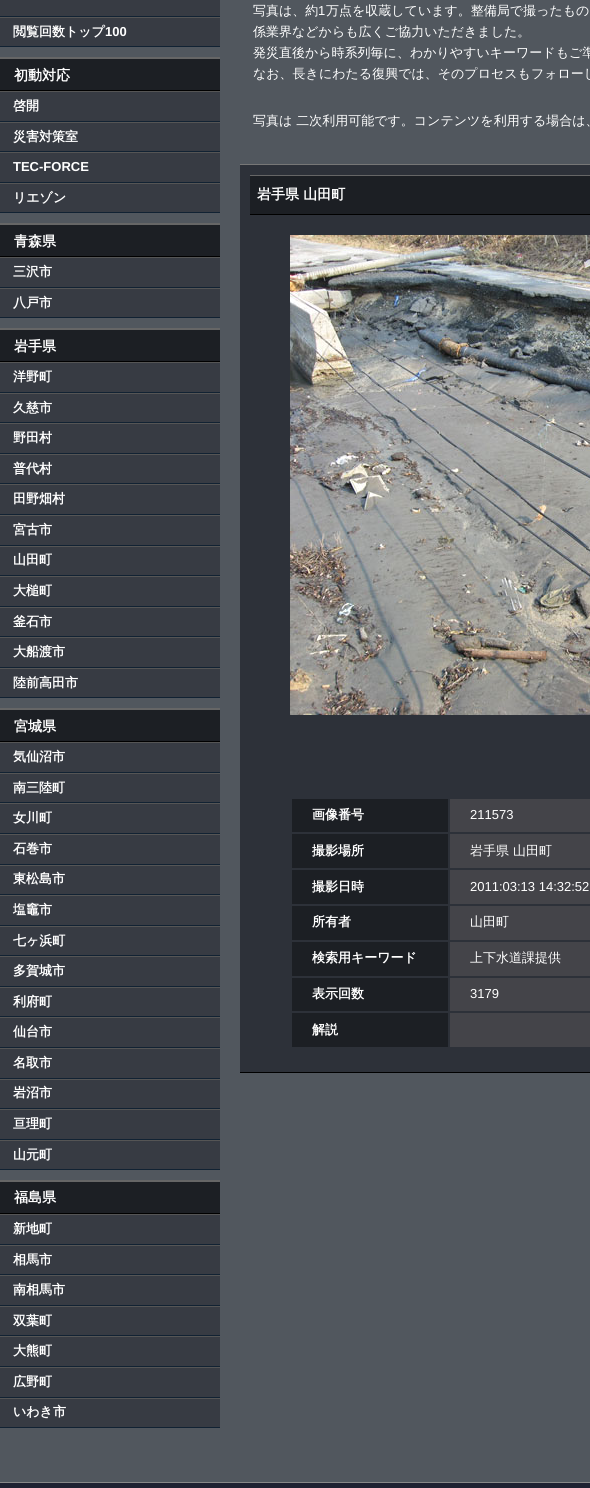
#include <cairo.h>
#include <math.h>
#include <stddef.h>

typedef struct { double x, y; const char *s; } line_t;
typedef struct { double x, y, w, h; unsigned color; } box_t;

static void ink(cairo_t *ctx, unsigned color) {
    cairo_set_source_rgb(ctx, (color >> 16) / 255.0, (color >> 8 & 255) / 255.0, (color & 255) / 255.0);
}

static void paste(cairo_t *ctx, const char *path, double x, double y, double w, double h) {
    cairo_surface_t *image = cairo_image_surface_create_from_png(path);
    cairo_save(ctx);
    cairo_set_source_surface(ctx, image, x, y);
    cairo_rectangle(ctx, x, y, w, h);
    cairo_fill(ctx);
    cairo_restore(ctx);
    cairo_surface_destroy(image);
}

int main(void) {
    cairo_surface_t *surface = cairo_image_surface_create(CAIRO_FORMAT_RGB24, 590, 1488);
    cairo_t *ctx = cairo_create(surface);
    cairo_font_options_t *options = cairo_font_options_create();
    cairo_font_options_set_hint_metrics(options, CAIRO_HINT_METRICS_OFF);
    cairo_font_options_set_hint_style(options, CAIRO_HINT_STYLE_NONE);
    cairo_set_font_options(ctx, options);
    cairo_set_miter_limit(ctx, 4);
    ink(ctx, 0x51575E);
    cairo_paint(ctx);
    {
        static const box_t items[] = {
            {0, 0, 220, 46, 0x373B43},
            {0, 16, 220, 1, 0x112233},
            {0, 17, 220, 1, 0x555555},
            {0, 46, 220, 1, 0x112233},
        };
        for (size_t i = 0; i < sizeof items / sizeof *items; i++) {
            ink(ctx, items[i].color);
            cairo_rectangle(ctx, items[i].x, items[i].y, items[i].w, items[i].h);
            cairo_fill(ctx);
        }
    }
    cairo_select_font_face(ctx, "WenQuanYi Zen Hei", CAIRO_FONT_SLANT_NORMAL, CAIRO_FONT_WEIGHT_BOLD);
    cairo_set_font_size(ctx, 13);
    ink(ctx, 0xFFFFFF);
    cairo_move_to(ctx, 13, 36);
    cairo_show_text(ctx, "閲覧回数トップ");
    cairo_select_font_face(ctx, "Liberation Sans", CAIRO_FONT_SLANT_NORMAL, CAIRO_FONT_WEIGHT_BOLD);
    cairo_move_to(ctx, 105, 36);
    cairo_show_text(ctx, "100");
    {
        static const box_t items[] = {
            {0, 59, 220, 31, 0x1C1F24},
            {0, 57, 220, 2, 0x666666},
            {0, 90, 220, 1, 0x000000},
        };
        for (size_t i = 0; i < sizeof items / sizeof *items; i++) {
            ink(ctx, items[i].color);
            cairo_rectangle(ctx, items[i].x, items[i].y, items[i].w, items[i].h);
            cairo_fill(ctx);
        }
    }
    cairo_select_font_face(ctx, "WenQuanYi Zen Hei", CAIRO_FONT_SLANT_NORMAL, CAIRO_FONT_WEIGHT_BOLD);
    cairo_set_font_size(ctx, 14);
    ink(ctx, 0xFFFFFF);
    cairo_move_to(ctx, 14, 80);
    cairo_show_text(ctx, "初動対応");
    {
        static const box_t items[] = {
            {0, 92, 220, 120, 0x373B43},
            {0, 91, 220, 1, 0x555555},
            {0, 121, 220, 1, 0x112233},
        };
        for (size_t i = 0; i < sizeof items / sizeof *items; i++) {
            ink(ctx, items[i].color);
            cairo_rectangle(ctx, items[i].x, items[i].y, items[i].w, items[i].h);
            cairo_fill(ctx);
        }
    }
    cairo_set_font_size(ctx, 13);
    ink(ctx, 0xFFFFFF);
    cairo_move_to(ctx, 13, 110);
    cairo_show_text(ctx, "啓開");
    ink(ctx, 0x555555);
    cairo_rectangle(ctx, 0, 122, 220, 1);
    cairo_fill(ctx);
    ink(ctx, 0x112233);
    cairo_rectangle(ctx, 0, 151, 220, 1);
    cairo_fill(ctx);
    ink(ctx, 0xFFFFFF);
    cairo_move_to(ctx, 13, 141);
    cairo_show_text(ctx, "災害対策室");
    ink(ctx, 0x555555);
    cairo_rectangle(ctx, 0, 152, 220, 1);
    cairo_fill(ctx);
    ink(ctx, 0x112233);
    cairo_rectangle(ctx, 0, 182, 220, 1);
    cairo_fill(ctx);
    cairo_select_font_face(ctx, "Liberation Sans", CAIRO_FONT_SLANT_NORMAL, CAIRO_FONT_WEIGHT_BOLD);
    ink(ctx, 0xFFFFFF);
    cairo_move_to(ctx, 13, 171);
    cairo_show_text(ctx, "TEC-FORCE");
    ink(ctx, 0x555555);
    cairo_rectangle(ctx, 0, 183, 220, 1);
    cairo_fill(ctx);
    ink(ctx, 0x112233);
    cairo_rectangle(ctx, 0, 212, 220, 1);
    cairo_fill(ctx);
    cairo_select_font_face(ctx, "WenQuanYi Zen Hei", CAIRO_FONT_SLANT_NORMAL, CAIRO_FONT_WEIGHT_BOLD);
    ink(ctx, 0xFFFFFF);
    cairo_move_to(ctx, 13, 202);
    cairo_show_text(ctx, "リエゾン");
    {
        static const box_t items[] = {
            {0, 225, 220, 31, 0x1C1F24},
            {0, 223, 220, 2, 0x666666},
            {0, 256, 220, 1, 0x000000},
        };
        for (size_t i = 0; i < sizeof items / sizeof *items; i++) {
            ink(ctx, items[i].color);
            cairo_rectangle(ctx, items[i].x, items[i].y, items[i].w, items[i].h);
            cairo_fill(ctx);
        }
    }
    cairo_set_font_size(ctx, 14);
    ink(ctx, 0xFFFFFF);
    cairo_move_to(ctx, 14, 246);
    cairo_show_text(ctx, "青森県");
    {
        static const box_t items[] = {
            {0, 258, 220, 59, 0x373B43},
            {0, 257, 220, 1, 0x555555},
            {0, 287, 220, 1, 0x112233},
        };
        for (size_t i = 0; i < sizeof items / sizeof *items; i++) {
            ink(ctx, items[i].color);
            cairo_rectangle(ctx, items[i].x, items[i].y, items[i].w, items[i].h);
            cairo_fill(ctx);
        }
    }
    cairo_set_font_size(ctx, 13);
    ink(ctx, 0xFFFFFF);
    cairo_move_to(ctx, 13, 276);
    cairo_show_text(ctx, "三沢市");
    ink(ctx, 0x555555);
    cairo_rectangle(ctx, 0, 288, 220, 1);
    cairo_fill(ctx);
    ink(ctx, 0x112233);
    cairo_rectangle(ctx, 0, 317, 220, 1);
    cairo_fill(ctx);
    ink(ctx, 0xFFFFFF);
    cairo_move_to(ctx, 13, 307);
    cairo_show_text(ctx, "八戸市");
    {
        static const box_t items[] = {
            {0, 330, 220, 31, 0x1C1F24},
            {0, 328, 220, 2, 0x666666},
            {0, 361, 220, 1, 0x000000},
        };
        for (size_t i = 0; i < sizeof items / sizeof *items; i++) {
            ink(ctx, items[i].color);
            cairo_rectangle(ctx, items[i].x, items[i].y, items[i].w, items[i].h);
            cairo_fill(ctx);
        }
    }
    cairo_set_font_size(ctx, 14);
    ink(ctx, 0xFFFFFF);
    cairo_move_to(ctx, 14, 351);
    cairo_show_text(ctx, "岩手県");
    {
        static const box_t items[] = {
            {0, 363, 220, 334, 0x373B43},
            {0, 362, 220, 1, 0x555555},
            {0, 392, 220, 1, 0x112233},
        };
        for (size_t i = 0; i < sizeof items / sizeof *items; i++) {
            ink(ctx, items[i].color);
            cairo_rectangle(ctx, items[i].x, items[i].y, items[i].w, items[i].h);
            cairo_fill(ctx);
        }
    }
    cairo_set_font_size(ctx, 13);
    ink(ctx, 0xFFFFFF);
    cairo_move_to(ctx, 13, 381);
    cairo_show_text(ctx, "洋野町");
    ink(ctx, 0x555555);
    cairo_rectangle(ctx, 0, 393, 220, 1);
    cairo_fill(ctx);
    ink(ctx, 0x112233);
    cairo_rectangle(ctx, 0, 422, 220, 1);
    cairo_fill(ctx);
    ink(ctx, 0xFFFFFF);
    cairo_move_to(ctx, 13, 412);
    cairo_show_text(ctx, "久慈市");
    ink(ctx, 0x555555);
    cairo_rectangle(ctx, 0, 423, 220, 1);
    cairo_fill(ctx);
    ink(ctx, 0x112233);
    cairo_rectangle(ctx, 0, 453, 220, 1);
    cairo_fill(ctx);
    ink(ctx, 0xFFFFFF);
    cairo_move_to(ctx, 13, 442);
    cairo_show_text(ctx, "野田村");
    ink(ctx, 0x555555);
    cairo_rectangle(ctx, 0, 454, 220, 1);
    cairo_fill(ctx);
    ink(ctx, 0x112233);
    cairo_rectangle(ctx, 0, 483, 220, 1);
    cairo_fill(ctx);
    ink(ctx, 0xFFFFFF);
    cairo_move_to(ctx, 13, 473);
    cairo_show_text(ctx, "普代村");
    ink(ctx, 0x555555);
    cairo_rectangle(ctx, 0, 484, 220, 1);
    cairo_fill(ctx);
    ink(ctx, 0x112233);
    cairo_rectangle(ctx, 0, 514, 220, 1);
    cairo_fill(ctx);
    ink(ctx, 0xFFFFFF);
    cairo_move_to(ctx, 13, 503);
    cairo_show_text(ctx, "田野畑村");
    ink(ctx, 0x555555);
    cairo_rectangle(ctx, 0, 515, 220, 1);
    cairo_fill(ctx);
    ink(ctx, 0x112233);
    cairo_rectangle(ctx, 0, 545, 220, 1);
    cairo_fill(ctx);
    ink(ctx, 0xFFFFFF);
    cairo_move_to(ctx, 13, 534);
    cairo_show_text(ctx, "宮古市");
    ink(ctx, 0x555555);
    cairo_rectangle(ctx, 0, 546, 220, 1);
    cairo_fill(ctx);
    ink(ctx, 0x112233);
    cairo_rectangle(ctx, 0, 575, 220, 1);
    cairo_fill(ctx);
    ink(ctx, 0xFFFFFF);
    cairo_move_to(ctx, 13, 564);
    cairo_show_text(ctx, "山田町");
    ink(ctx, 0x555555);
    cairo_rectangle(ctx, 0, 576, 220, 1);
    cairo_fill(ctx);
    ink(ctx, 0x112233);
    cairo_rectangle(ctx, 0, 606, 220, 1);
    cairo_fill(ctx);
    ink(ctx, 0xFFFFFF);
    cairo_move_to(ctx, 13, 595);
    cairo_show_text(ctx, "大槌町");
    ink(ctx, 0x555555);
    cairo_rectangle(ctx, 0, 607, 220, 1);
    cairo_fill(ctx);
    ink(ctx, 0x112233);
    cairo_rectangle(ctx, 0, 636, 220, 1);
    cairo_fill(ctx);
    ink(ctx, 0xFFFFFF);
    cairo_move_to(ctx, 13, 626);
    cairo_show_text(ctx, "釜石市");
    ink(ctx, 0x555555);
    cairo_rectangle(ctx, 0, 637, 220, 1);
    cairo_fill(ctx);
    ink(ctx, 0x112233);
    cairo_rectangle(ctx, 0, 667, 220, 1);
    cairo_fill(ctx);
    ink(ctx, 0xFFFFFF);
    cairo_move_to(ctx, 13, 656);
    cairo_show_text(ctx, "大船渡市");
    ink(ctx, 0x555555);
    cairo_rectangle(ctx, 0, 668, 220, 1);
    cairo_fill(ctx);
    ink(ctx, 0x112233);
    cairo_rectangle(ctx, 0, 697, 220, 1);
    cairo_fill(ctx);
    ink(ctx, 0xFFFFFF);
    cairo_move_to(ctx, 13, 687);
    cairo_show_text(ctx, "陸前高田市");
    {
        static const box_t items[] = {
            {0, 710, 220, 31, 0x1C1F24},
            {0, 708, 220, 2, 0x666666},
            {0, 741, 220, 1, 0x000000},
        };
        for (size_t i = 0; i < sizeof items / sizeof *items; i++) {
            ink(ctx, items[i].color);
            cairo_rectangle(ctx, items[i].x, items[i].y, items[i].w, items[i].h);
            cairo_fill(ctx);
        }
    }
    cairo_set_font_size(ctx, 14);
    ink(ctx, 0xFFFFFF);
    cairo_move_to(ctx, 14, 731);
    cairo_show_text(ctx, "宮城県");
    {
        static const box_t items[] = {
            {0, 743, 220, 426, 0x373B43},
            {0, 742, 220, 1, 0x555555},
            {0, 772, 220, 1, 0x112233},
        };
        for (size_t i = 0; i < sizeof items / sizeof *items; i++) {
            ink(ctx, items[i].color);
            cairo_rectangle(ctx, items[i].x, items[i].y, items[i].w, items[i].h);
            cairo_fill(ctx);
        }
    }
    cairo_set_font_size(ctx, 13);
    ink(ctx, 0xFFFFFF);
    cairo_move_to(ctx, 13, 761);
    cairo_show_text(ctx, "気仙沼市");
    ink(ctx, 0x555555);
    cairo_rectangle(ctx, 0, 773, 220, 1);
    cairo_fill(ctx);
    ink(ctx, 0x112233);
    cairo_rectangle(ctx, 0, 802, 220, 1);
    cairo_fill(ctx);
    ink(ctx, 0xFFFFFF);
    cairo_move_to(ctx, 13, 792);
    cairo_show_text(ctx, "南三陸町");
    ink(ctx, 0x555555);
    cairo_rectangle(ctx, 0, 803, 220, 1);
    cairo_fill(ctx);
    ink(ctx, 0x112233);
    cairo_rectangle(ctx, 0, 833, 220, 1);
    cairo_fill(ctx);
    ink(ctx, 0xFFFFFF);
    cairo_move_to(ctx, 13, 822);
    cairo_show_text(ctx, "女川町");
    ink(ctx, 0x555555);
    cairo_rectangle(ctx, 0, 834, 220, 1);
    cairo_fill(ctx);
    ink(ctx, 0x112233);
    cairo_rectangle(ctx, 0, 864, 220, 1);
    cairo_fill(ctx);
    ink(ctx, 0xFFFFFF);
    cairo_move_to(ctx, 13, 853);
    cairo_show_text(ctx, "石巻市");
    ink(ctx, 0x555555);
    cairo_rectangle(ctx, 0, 865, 220, 1);
    cairo_fill(ctx);
    ink(ctx, 0x112233);
    cairo_rectangle(ctx, 0, 894, 220, 1);
    cairo_fill(ctx);
    ink(ctx, 0xFFFFFF);
    cairo_move_to(ctx, 13, 883);
    cairo_show_text(ctx, "東松島市");
    ink(ctx, 0x555555);
    cairo_rectangle(ctx, 0, 895, 220, 1);
    cairo_fill(ctx);
    ink(ctx, 0x112233);
    cairo_rectangle(ctx, 0, 925, 220, 1);
    cairo_fill(ctx);
    ink(ctx, 0xFFFFFF);
    cairo_move_to(ctx, 13, 914);
    cairo_show_text(ctx, "塩竈市");
    ink(ctx, 0x555555);
    cairo_rectangle(ctx, 0, 926, 220, 1);
    cairo_fill(ctx);
    ink(ctx, 0x112233);
    cairo_rectangle(ctx, 0, 955, 220, 1);
    cairo_fill(ctx);
    ink(ctx, 0xFFFFFF);
    cairo_move_to(ctx, 13, 945);
    cairo_show_text(ctx, "七ヶ浜町");
    ink(ctx, 0x555555);
    cairo_rectangle(ctx, 0, 956, 220, 1);
    cairo_fill(ctx);
    ink(ctx, 0x112233);
    cairo_rectangle(ctx, 0, 986, 220, 1);
    cairo_fill(ctx);
    ink(ctx, 0xFFFFFF);
    cairo_move_to(ctx, 13, 975);
    cairo_show_text(ctx, "多賀城市");
    ink(ctx, 0x555555);
    cairo_rectangle(ctx, 0, 987, 220, 1);
    cairo_fill(ctx);
    ink(ctx, 0x112233);
    cairo_rectangle(ctx, 0, 1016, 220, 1);
    cairo_fill(ctx);
    ink(ctx, 0xFFFFFF);
    cairo_move_to(ctx, 13, 1006);
    cairo_show_text(ctx, "利府町");
    ink(ctx, 0x555555);
    cairo_rectangle(ctx, 0, 1017, 220, 1);
    cairo_fill(ctx);
    ink(ctx, 0x112233);
    cairo_rectangle(ctx, 0, 1047, 220, 1);
    cairo_fill(ctx);
    ink(ctx, 0xFFFFFF);
    cairo_move_to(ctx, 13, 1036);
    cairo_show_text(ctx, "仙台市");
    ink(ctx, 0x555555);
    cairo_rectangle(ctx, 0, 1048, 220, 1);
    cairo_fill(ctx);
    ink(ctx, 0x112233);
    cairo_rectangle(ctx, 0, 1078, 220, 1);
    cairo_fill(ctx);
    ink(ctx, 0xFFFFFF);
    cairo_move_to(ctx, 13, 1067);
    cairo_show_text(ctx, "名取市");
    ink(ctx, 0x555555);
    cairo_rectangle(ctx, 0, 1079, 220, 1);
    cairo_fill(ctx);
    ink(ctx, 0x112233);
    cairo_rectangle(ctx, 0, 1108, 220, 1);
    cairo_fill(ctx);
    ink(ctx, 0xFFFFFF);
    cairo_move_to(ctx, 13, 1097);
    cairo_show_text(ctx, "岩沼市");
    ink(ctx, 0x555555);
    cairo_rectangle(ctx, 0, 1109, 220, 1);
    cairo_fill(ctx);
    ink(ctx, 0x112233);
    cairo_rectangle(ctx, 0, 1139, 220, 1);
    cairo_fill(ctx);
    ink(ctx, 0xFFFFFF);
    cairo_move_to(ctx, 13, 1128);
    cairo_show_text(ctx, "亘理町");
    ink(ctx, 0x555555);
    cairo_rectangle(ctx, 0, 1140, 220, 1);
    cairo_fill(ctx);
    ink(ctx, 0x112233);
    cairo_rectangle(ctx, 0, 1169, 220, 1);
    cairo_fill(ctx);
    ink(ctx, 0xFFFFFF);
    cairo_move_to(ctx, 13, 1159);
    cairo_show_text(ctx, "山元町");
    {
        static const box_t items[] = {
            {0, 1182, 220, 31, 0x1C1F24},
            {0, 1180, 220, 2, 0x666666},
            {0, 1213, 220, 1, 0x000000},
        };
        for (size_t i = 0; i < sizeof items / sizeof *items; i++) {
            ink(ctx, items[i].color);
            cairo_rectangle(ctx, items[i].x, items[i].y, items[i].w, items[i].h);
            cairo_fill(ctx);
        }
    }
    cairo_set_font_size(ctx, 14);
    ink(ctx, 0xFFFFFF);
    cairo_move_to(ctx, 14, 1202);
    cairo_show_text(ctx, "福島県");
    {
        static const box_t items[] = {
            {0, 1215, 220, 212, 0x373B43},
            {0, 1214, 220, 1, 0x555555},
            {0, 1244, 220, 1, 0x112233},
        };
        for (size_t i = 0; i < sizeof items / sizeof *items; i++) {
            ink(ctx, items[i].color);
            cairo_rectangle(ctx, items[i].x, items[i].y, items[i].w, items[i].h);
            cairo_fill(ctx);
        }
    }
    cairo_set_font_size(ctx, 13);
    ink(ctx, 0xFFFFFF);
    cairo_move_to(ctx, 13, 1233);
    cairo_show_text(ctx, "新地町");
    ink(ctx, 0x555555);
    cairo_rectangle(ctx, 0, 1245, 220, 1);
    cairo_fill(ctx);
    ink(ctx, 0x112233);
    cairo_rectangle(ctx, 0, 1274, 220, 1);
    cairo_fill(ctx);
    ink(ctx, 0xFFFFFF);
    cairo_move_to(ctx, 13, 1264);
    cairo_show_text(ctx, "相馬市");
    ink(ctx, 0x555555);
    cairo_rectangle(ctx, 0, 1275, 220, 1);
    cairo_fill(ctx);
    ink(ctx, 0x112233);
    cairo_rectangle(ctx, 0, 1305, 220, 1);
    cairo_fill(ctx);
    ink(ctx, 0xFFFFFF);
    cairo_move_to(ctx, 13, 1294);
    cairo_show_text(ctx, "南相馬市");
    ink(ctx, 0x555555);
    cairo_rectangle(ctx, 0, 1306, 220, 1);
    cairo_fill(ctx);
    ink(ctx, 0x112233);
    cairo_rectangle(ctx, 0, 1335, 220, 1);
    cairo_fill(ctx);
    ink(ctx, 0xFFFFFF);
    cairo_move_to(ctx, 13, 1325);
    cairo_show_text(ctx, "双葉町");
    ink(ctx, 0x555555);
    cairo_rectangle(ctx, 0, 1336, 220, 1);
    cairo_fill(ctx);
    ink(ctx, 0x112233);
    cairo_rectangle(ctx, 0, 1366, 220, 1);
    cairo_fill(ctx);
    ink(ctx, 0xFFFFFF);
    cairo_move_to(ctx, 13, 1355);
    cairo_show_text(ctx, "大熊町");
    ink(ctx, 0x555555);
    cairo_rectangle(ctx, 0, 1367, 220, 1);
    cairo_fill(ctx);
    ink(ctx, 0x112233);
    cairo_rectangle(ctx, 0, 1397, 220, 1);
    cairo_fill(ctx);
    ink(ctx, 0xFFFFFF);
    cairo_move_to(ctx, 13, 1386);
    cairo_show_text(ctx, "広野町");
    ink(ctx, 0x555555);
    cairo_rectangle(ctx, 0, 1398, 220, 1);
    cairo_fill(ctx);
    ink(ctx, 0x112233);
    cairo_rectangle(ctx, 0, 1427, 220, 1);
    cairo_fill(ctx);
    ink(ctx, 0xFFFFFF);
    cairo_move_to(ctx, 13, 1416);
    cairo_show_text(ctx, "いわき市");
    cairo_select_font_face(ctx, "WenQuanYi Zen Hei Medium", CAIRO_FONT_SLANT_NORMAL, CAIRO_FONT_WEIGHT_NORMAL);
    cairo_move_to(ctx, 253, 15);
    cairo_show_text(ctx, "写真は、約");
    cairo_select_font_face(ctx, "Liberation Sans", CAIRO_FONT_SLANT_NORMAL, CAIRO_FONT_WEIGHT_NORMAL);
    cairo_move_to(ctx, 318, 15);
    cairo_show_text(ctx, "1");
    cairo_select_font_face(ctx, "WenQuanYi Zen Hei Medium", CAIRO_FONT_SLANT_NORMAL, CAIRO_FONT_WEIGHT_NORMAL);
    {
        static const line_t items[] = {
            {326, 15, "万点を収蔵しています。整備局で撮ったもの"},
            {253, 36, "係業界などからも広くご協力いただきました。"},
            {253, 57, "発災直後から時系列毎に、わかりやすいキーワードもご準"},
            {253, 78, "なお、長きにわたる復興では、そのプロセスもフォローし"},
            {253, 125, "写真は 二次利用可能です。コンテンツを利用する場合は、"},
        };
        for (size_t i = 0; i < sizeof items / sizeof *items; i++) {
            cairo_move_to(ctx, items[i].x, items[i].y);
            cairo_show_text(ctx, items[i].s);
        }
    }
    {
        static const box_t items[] = {
            {240, 165, 350, 907, 0x2D3139},
            {240, 164, 350, 1, 0x777777},
            {240, 1072, 350, 1, 0x000000},
            {250, 176, 340, 38, 0x1C1F24},
            {250, 175, 340, 1, 0x666666},
            {250, 214, 340, 1, 0x000000},
        };
        for (size_t i = 0; i < sizeof items / sizeof *items; i++) {
            ink(ctx, items[i].color);
            cairo_rectangle(ctx, items[i].x, items[i].y, items[i].w, items[i].h);
            cairo_fill(ctx);
        }
    }
    cairo_select_font_face(ctx, "WenQuanYi Zen Hei", CAIRO_FONT_SLANT_NORMAL, CAIRO_FONT_WEIGHT_BOLD);
    cairo_set_font_size(ctx, 14);
    ink(ctx, 0xFFFFFF);
    cairo_move_to(ctx, 257, 199);
    cairo_show_text(ctx, "岩手県 山田町");
    paste(ctx, "media/1.png", 290, 235, 300, 480);
    ink(ctx, 0x1C1F24);
    cairo_rectangle(ctx, 292, 799, 156, 33);
    cairo_fill(ctx);
    cairo_set_font_size(ctx, 13);
    ink(ctx, 0xFFFFFF);
    cairo_move_to(ctx, 312, 819);
    cairo_show_text(ctx, "画像番号");
    ink(ctx, 0x444449);
    cairo_rectangle(ctx, 450, 799, 140, 33);
    cairo_fill(ctx);
    cairo_select_font_face(ctx, "Liberation Sans", CAIRO_FONT_SLANT_NORMAL, CAIRO_FONT_WEIGHT_NORMAL);
    ink(ctx, 0xFFFFFF);
    cairo_move_to(ctx, 470, 819);
    cairo_show_text(ctx, "211573");
    ink(ctx, 0x1C1F24);
    cairo_rectangle(ctx, 292, 834, 156, 34);
    cairo_fill(ctx);
    cairo_select_font_face(ctx, "WenQuanYi Zen Hei", CAIRO_FONT_SLANT_NORMAL, CAIRO_FONT_WEIGHT_BOLD);
    ink(ctx, 0xFFFFFF);
    cairo_move_to(ctx, 312, 855);
    cairo_show_text(ctx, "撮影場所");
    ink(ctx, 0x444449);
    cairo_rectangle(ctx, 450, 834, 140, 34);
    cairo_fill(ctx);
    cairo_select_font_face(ctx, "WenQuanYi Zen Hei Medium", CAIRO_FONT_SLANT_NORMAL, CAIRO_FONT_WEIGHT_NORMAL);
    ink(ctx, 0xFFFFFF);
    cairo_move_to(ctx, 470, 855);
    cairo_show_text(ctx, "岩手県 山田町");
    ink(ctx, 0x1C1F24);
    cairo_rectangle(ctx, 292, 870, 156, 34);
    cairo_fill(ctx);
    cairo_select_font_face(ctx, "WenQuanYi Zen Hei", CAIRO_FONT_SLANT_NORMAL, CAIRO_FONT_WEIGHT_BOLD);
    ink(ctx, 0xFFFFFF);
    cairo_move_to(ctx, 312, 891);
    cairo_show_text(ctx, "撮影日時");
    ink(ctx, 0x444449);
    cairo_rectangle(ctx, 450, 870, 140, 34);
    cairo_fill(ctx);
    cairo_select_font_face(ctx, "Liberation Sans", CAIRO_FONT_SLANT_NORMAL, CAIRO_FONT_WEIGHT_NORMAL);
    ink(ctx, 0xFFFFFF);
    cairo_move_to(ctx, 470, 891);
    cairo_show_text(ctx, "2011:03:13 14:32:52");
    ink(ctx, 0x1C1F24);
    cairo_rectangle(ctx, 292, 906, 156, 34);
    cairo_fill(ctx);
    cairo_select_font_face(ctx, "WenQuanYi Zen Hei", CAIRO_FONT_SLANT_NORMAL, CAIRO_FONT_WEIGHT_BOLD);
    ink(ctx, 0xFFFFFF);
    cairo_move_to(ctx, 312, 926);
    cairo_show_text(ctx, "所有者");
    ink(ctx, 0x444449);
    cairo_rectangle(ctx, 450, 906, 140, 34);
    cairo_fill(ctx);
    cairo_select_font_face(ctx, "WenQuanYi Zen Hei Medium", CAIRO_FONT_SLANT_NORMAL, CAIRO_FONT_WEIGHT_NORMAL);
    ink(ctx, 0xFFFFFF);
    cairo_move_to(ctx, 470, 926);
    cairo_show_text(ctx, "山田町");
    ink(ctx, 0x1C1F24);
    cairo_rectangle(ctx, 292, 942, 156, 34);
    cairo_fill(ctx);
    cairo_select_font_face(ctx, "WenQuanYi Zen Hei", CAIRO_FONT_SLANT_NORMAL, CAIRO_FONT_WEIGHT_BOLD);
    ink(ctx, 0xFFFFFF);
    cairo_move_to(ctx, 312, 962);
    cairo_show_text(ctx, "検索用キーワード");
    ink(ctx, 0x444449);
    cairo_rectangle(ctx, 450, 942, 140, 34);
    cairo_fill(ctx);
    cairo_select_font_face(ctx, "WenQuanYi Zen Hei Medium", CAIRO_FONT_SLANT_NORMAL, CAIRO_FONT_WEIGHT_NORMAL);
    ink(ctx, 0xFFFFFF);
    cairo_move_to(ctx, 470, 962);
    cairo_show_text(ctx, "上下水道課提供");
    ink(ctx, 0x1C1F24);
    cairo_rectangle(ctx, 292, 978, 156, 33);
    cairo_fill(ctx);
    cairo_select_font_face(ctx, "WenQuanYi Zen Hei", CAIRO_FONT_SLANT_NORMAL, CAIRO_FONT_WEIGHT_BOLD);
    ink(ctx, 0xFFFFFF);
    cairo_move_to(ctx, 312, 998);
    cairo_show_text(ctx, "表示回数");
    ink(ctx, 0x444449);
    cairo_rectangle(ctx, 450, 978, 140, 33);
    cairo_fill(ctx);
    cairo_select_font_face(ctx, "Liberation Sans", CAIRO_FONT_SLANT_NORMAL, CAIRO_FONT_WEIGHT_NORMAL);
    ink(ctx, 0xFFFFFF);
    cairo_move_to(ctx, 470, 998);
    cairo_show_text(ctx, "3179");
    ink(ctx, 0x1C1F24);
    cairo_rectangle(ctx, 292, 1013, 156, 34);
    cairo_fill(ctx);
    cairo_select_font_face(ctx, "WenQuanYi Zen Hei", CAIRO_FONT_SLANT_NORMAL, CAIRO_FONT_WEIGHT_BOLD);
    ink(ctx, 0xFFFFFF);
    cairo_move_to(ctx, 312, 1034);
    cairo_show_text(ctx, "解説");
    {
        static const box_t items[] = {
            {450, 1013, 140, 34, 0x444449},
            {0, 1483, 590, 5, 0x1F2131},
            {0, 1482, 590, 1, 0x888888},
        };
        for (size_t i = 0; i < sizeof items / sizeof *items; i++) {
            ink(ctx, items[i].color);
            cairo_rectangle(ctx, items[i].x, items[i].y, items[i].w, items[i].h);
            cairo_fill(ctx);
        }
    }
    cairo_surface_write_to_png(surface, "image.png");
    cairo_font_options_destroy(options);
    cairo_destroy(ctx);
    cairo_surface_destroy(surface);
    return 0;
}
